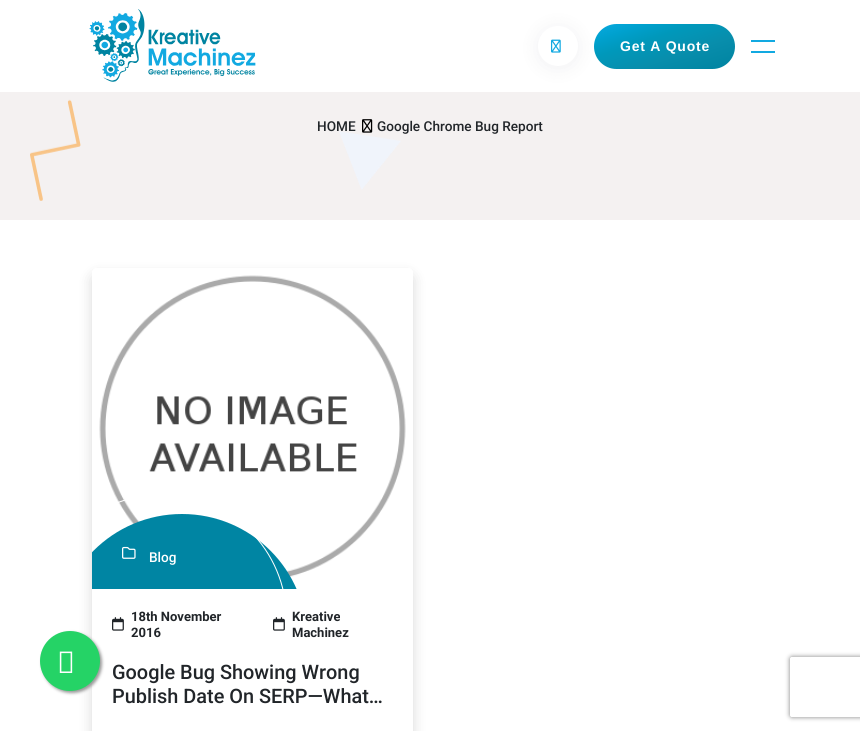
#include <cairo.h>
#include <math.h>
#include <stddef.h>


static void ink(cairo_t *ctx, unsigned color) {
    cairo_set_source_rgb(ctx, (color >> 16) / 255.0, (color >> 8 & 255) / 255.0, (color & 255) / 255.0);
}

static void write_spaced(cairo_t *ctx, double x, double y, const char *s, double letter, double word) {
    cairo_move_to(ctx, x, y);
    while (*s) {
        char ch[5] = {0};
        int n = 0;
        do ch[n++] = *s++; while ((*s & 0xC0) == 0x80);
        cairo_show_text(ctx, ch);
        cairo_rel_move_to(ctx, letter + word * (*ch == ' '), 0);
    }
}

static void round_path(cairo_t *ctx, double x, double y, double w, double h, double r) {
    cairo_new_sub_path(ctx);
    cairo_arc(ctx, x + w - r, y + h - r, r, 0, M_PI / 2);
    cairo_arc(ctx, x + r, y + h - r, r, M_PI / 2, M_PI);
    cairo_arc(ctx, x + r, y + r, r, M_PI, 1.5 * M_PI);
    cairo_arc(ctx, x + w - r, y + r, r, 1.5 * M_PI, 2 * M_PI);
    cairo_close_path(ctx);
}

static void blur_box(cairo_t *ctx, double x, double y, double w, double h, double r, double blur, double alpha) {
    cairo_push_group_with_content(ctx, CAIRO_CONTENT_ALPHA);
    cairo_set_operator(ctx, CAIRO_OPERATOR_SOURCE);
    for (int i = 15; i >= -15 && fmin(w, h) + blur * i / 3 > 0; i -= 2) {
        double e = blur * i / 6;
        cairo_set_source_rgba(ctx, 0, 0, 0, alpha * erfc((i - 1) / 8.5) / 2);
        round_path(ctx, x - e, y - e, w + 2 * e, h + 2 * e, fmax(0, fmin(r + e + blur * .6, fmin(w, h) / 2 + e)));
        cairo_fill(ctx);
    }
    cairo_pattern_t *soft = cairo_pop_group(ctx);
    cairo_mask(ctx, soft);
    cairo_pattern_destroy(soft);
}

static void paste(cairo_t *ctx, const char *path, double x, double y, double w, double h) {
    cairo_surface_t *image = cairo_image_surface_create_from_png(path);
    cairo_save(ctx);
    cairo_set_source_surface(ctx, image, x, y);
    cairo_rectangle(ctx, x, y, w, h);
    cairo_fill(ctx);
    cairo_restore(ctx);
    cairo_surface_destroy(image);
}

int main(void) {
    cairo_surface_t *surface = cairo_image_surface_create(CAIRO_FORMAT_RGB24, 860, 731);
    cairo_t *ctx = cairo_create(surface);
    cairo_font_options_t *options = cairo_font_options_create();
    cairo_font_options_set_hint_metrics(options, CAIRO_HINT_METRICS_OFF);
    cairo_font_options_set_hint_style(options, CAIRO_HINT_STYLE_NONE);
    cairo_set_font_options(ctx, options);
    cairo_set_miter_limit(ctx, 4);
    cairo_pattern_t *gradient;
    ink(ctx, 0xFFFFFF);
    cairo_paint(ctx);
    paste(ctx, "media/1.png", 89, 9, 167, 73);
    ink(ctx, 0xF4F1F1);
    cairo_rectangle(ctx, 0, 92, 860, 128);
    cairo_fill(ctx);
    ink(ctx, 0x080E1C);
    blur_box(ctx, 538, 28, 40, 40, 20, 10, 0.06);
    ink(ctx, 0xFFFFFF);
    cairo_arc(ctx, 558, 46, 20, 0, 2 * M_PI);
    cairo_fill(ctx);
    paste(ctx, "media/2.png", 551, 39, 10, 14);
    gradient = cairo_pattern_create_linear(651, 5.7, 678, 87);
    cairo_pattern_add_color_stop_rgba(gradient, 0, 0.071, 0.663, 0.882, 1);
    cairo_pattern_add_color_stop_rgba(gradient, 0.09, 0.016, 0.647, 0.843, 1);
    cairo_pattern_add_color_stop_rgba(gradient, 0.18, 0, 0.631, 0.808, 1);
    cairo_pattern_add_color_stop_rgba(gradient, 0.27, 0, 0.612, 0.769, 1);
    cairo_pattern_add_color_stop_rgba(gradient, 0.36, 0, 0.596, 0.733, 1);
    cairo_pattern_add_color_stop_rgba(gradient, 0.45, 0.012, 0.584, 0.714, 1);
    cairo_pattern_add_color_stop_rgba(gradient, 0.55, 0.02, 0.569, 0.694, 1);
    cairo_pattern_add_color_stop_rgba(gradient, 0.64, 0.031, 0.557, 0.675, 1);
    cairo_pattern_add_color_stop_rgba(gradient, 0.73, 0.024, 0.545, 0.663, 1);
    cairo_pattern_add_color_stop_rgba(gradient, 0.82, 0.016, 0.537, 0.651, 1);
    cairo_pattern_add_color_stop_rgba(gradient, 0.91, 0.008, 0.525, 0.643, 1);
    cairo_pattern_add_color_stop_rgba(gradient, 1, 0, 0.518, 0.631, 1);
    cairo_set_source(ctx, gradient);
    cairo_pattern_destroy(gradient);
    round_path(ctx, 594, 24, 141, 45, 22.5);
    cairo_fill(ctx);
    cairo_select_font_face(ctx, "Liberation Sans", CAIRO_FONT_SLANT_NORMAL, CAIRO_FONT_WEIGHT_BOLD);
    cairo_set_font_size(ctx, 14);
    ink(ctx, 0xFFFFFF);
    write_spaced(ctx, 620, 51, "Get A Quote", 0.75, 0);
    ink(ctx, 0x12A9E1);
    cairo_rectangle(ctx, 751, 40, 24, 2);
    cairo_fill(ctx);
    cairo_rectangle(ctx, 751, 51, 24, 2);
    cairo_fill(ctx);
    paste(ctx, "media/3.png", 30, 99, 371, 102);
    cairo_select_font_face(ctx, "Roboto Medium", CAIRO_FONT_SLANT_NORMAL, CAIRO_FONT_WEIGHT_NORMAL);
    cairo_set_font_size(ctx, 13.6);
    ink(ctx, 0x212529);
    cairo_move_to(ctx, 317, 131);
    cairo_show_text(ctx, "HOME");
    paste(ctx, "media/4.png", 362, 119, 11, 14);
    cairo_move_to(ctx, 377, 131);
    cairo_show_text(ctx, "Google Chrome Bug Report");
    cairo_save(ctx);
    cairo_set_fill_rule(ctx, CAIRO_FILL_RULE_EVEN_ODD);
    cairo_new_path(ctx);
    cairo_move_to(ctx, 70, 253);
    cairo_line_to(ctx, 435, 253);
    cairo_line_to(ctx, 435, 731);
    cairo_line_to(ctx, 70, 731);
    cairo_close_path(ctx);
    cairo_move_to(ctx, 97, 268);
    cairo_line_to(ctx, 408, 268);
    cairo_curve_to(ctx, 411, 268, 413, 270, 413, 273);
    cairo_line_to(ctx, 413, 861);
    cairo_curve_to(ctx, 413, 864, 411, 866, 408, 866);
    cairo_line_to(ctx, 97, 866);
    cairo_curve_to(ctx, 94, 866, 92, 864, 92, 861);
    cairo_line_to(ctx, 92, 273);
    cairo_curve_to(ctx, 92, 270, 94, 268, 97, 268);
    cairo_close_path(ctx);
    cairo_clip(ctx);
    ink(ctx, 0x000000);
    blur_box(ctx, 92, 275, 321, 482, 5, 7, 0.15);
    cairo_restore(ctx);
    paste(ctx, "media/6.png", 99, 275, 307, 302);
    paste(ctx, "media/8.png", 112, 617, 12, 14);
    cairo_select_font_face(ctx, "Roboto", CAIRO_FONT_SLANT_NORMAL, CAIRO_FONT_WEIGHT_BOLD);
    cairo_set_font_size(ctx, 13);
    cairo_move_to(ctx, 131, 621);
    cairo_show_text(ctx, "18th November");
    cairo_move_to(ctx, 131, 637);
    cairo_show_text(ctx, "2016");
    paste(ctx, "media/8.png", 273, 617, 12, 14);
    cairo_move_to(ctx, 292, 621);
    cairo_show_text(ctx, "Kreative");
    cairo_move_to(ctx, 292, 637);
    cairo_show_text(ctx, "Machinez");
    cairo_select_font_face(ctx, "Roboto Medium", CAIRO_FONT_SLANT_NORMAL, CAIRO_FONT_WEIGHT_NORMAL);
    cairo_set_font_size(ctx, 19.9);
    cairo_move_to(ctx, 112, 679);
    cairo_show_text(ctx, "Google Bug Showing Wrong");
    cairo_move_to(ctx, 112, 703);
    cairo_show_text(ctx, "Publish Date On SERP—What…");
    cairo_save(ctx);
    cairo_rectangle(ctx, 92, 268, 321, 321);
    cairo_clip(ctx);
    ink(ctx, 0x0085A3);
    cairo_arc(ctx, 182, 639, 125, 0, 2 * M_PI);
    cairo_fill(ctx);
    cairo_restore(ctx);
    paste(ctx, "media/7.png", 122, 546, 14, 13);
    cairo_save(ctx);
    cairo_rectangle(ctx, 92, 268, 321, 321);
    cairo_clip(ctx);
    cairo_arc(ctx, 162, 619, 124.5, 0, 2 * M_PI);
    ink(ctx, 0xFFFFFF);
    cairo_set_line_width(ctx, 1);
    cairo_stroke(ctx);
    cairo_restore(ctx);
    ink(ctx, 0x999999);
    blur_box(ctx, 42, 633, 60, 60, 30, 1.5, 1);
    ink(ctx, 0x25D366);
    cairo_arc(ctx, 70, 661, 30, 0, 2 * M_PI);
    cairo_fill(ctx);
    paste(ctx, "media/5.png", 59, 651, 14, 22);
    cairo_set_font_size(ctx, 13.6);
    ink(ctx, 0xFFFFFF);
    cairo_move_to(ctx, 149, 562);
    cairo_show_text(ctx, "Blog");
    cairo_save(ctx);
    cairo_set_fill_rule(ctx, CAIRO_FILL_RULE_EVEN_ODD);
    cairo_new_path(ctx);
    cairo_move_to(ctx, 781, 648);
    cairo_line_to(ctx, 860, 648);
    cairo_line_to(ctx, 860, 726);
    cairo_line_to(ctx, 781, 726);
    cairo_close_path(ctx);
    cairo_move_to(ctx, 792, 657);
    cairo_line_to(ctx, 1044, 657);
    cairo_curve_to(ctx, 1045, 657, 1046, 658, 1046, 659);
    cairo_line_to(ctx, 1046, 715);
    cairo_curve_to(ctx, 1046, 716, 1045, 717, 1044, 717);
    cairo_line_to(ctx, 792, 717);
    cairo_curve_to(ctx, 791, 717, 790, 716, 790, 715);
    cairo_line_to(ctx, 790, 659);
    cairo_curve_to(ctx, 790, 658, 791, 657, 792, 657);
    cairo_close_path(ctx);
    cairo_clip(ctx);
    ink(ctx, 0x808080);
    blur_box(ctx, 790, 657, 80, 60, 2, 2.5, 1);
    cairo_restore(ctx);
    cairo_surface_write_to_png(surface, "image.png");
    cairo_font_options_destroy(options);
    cairo_destroy(ctx);
    cairo_surface_destroy(surface);
    return 0;
}
